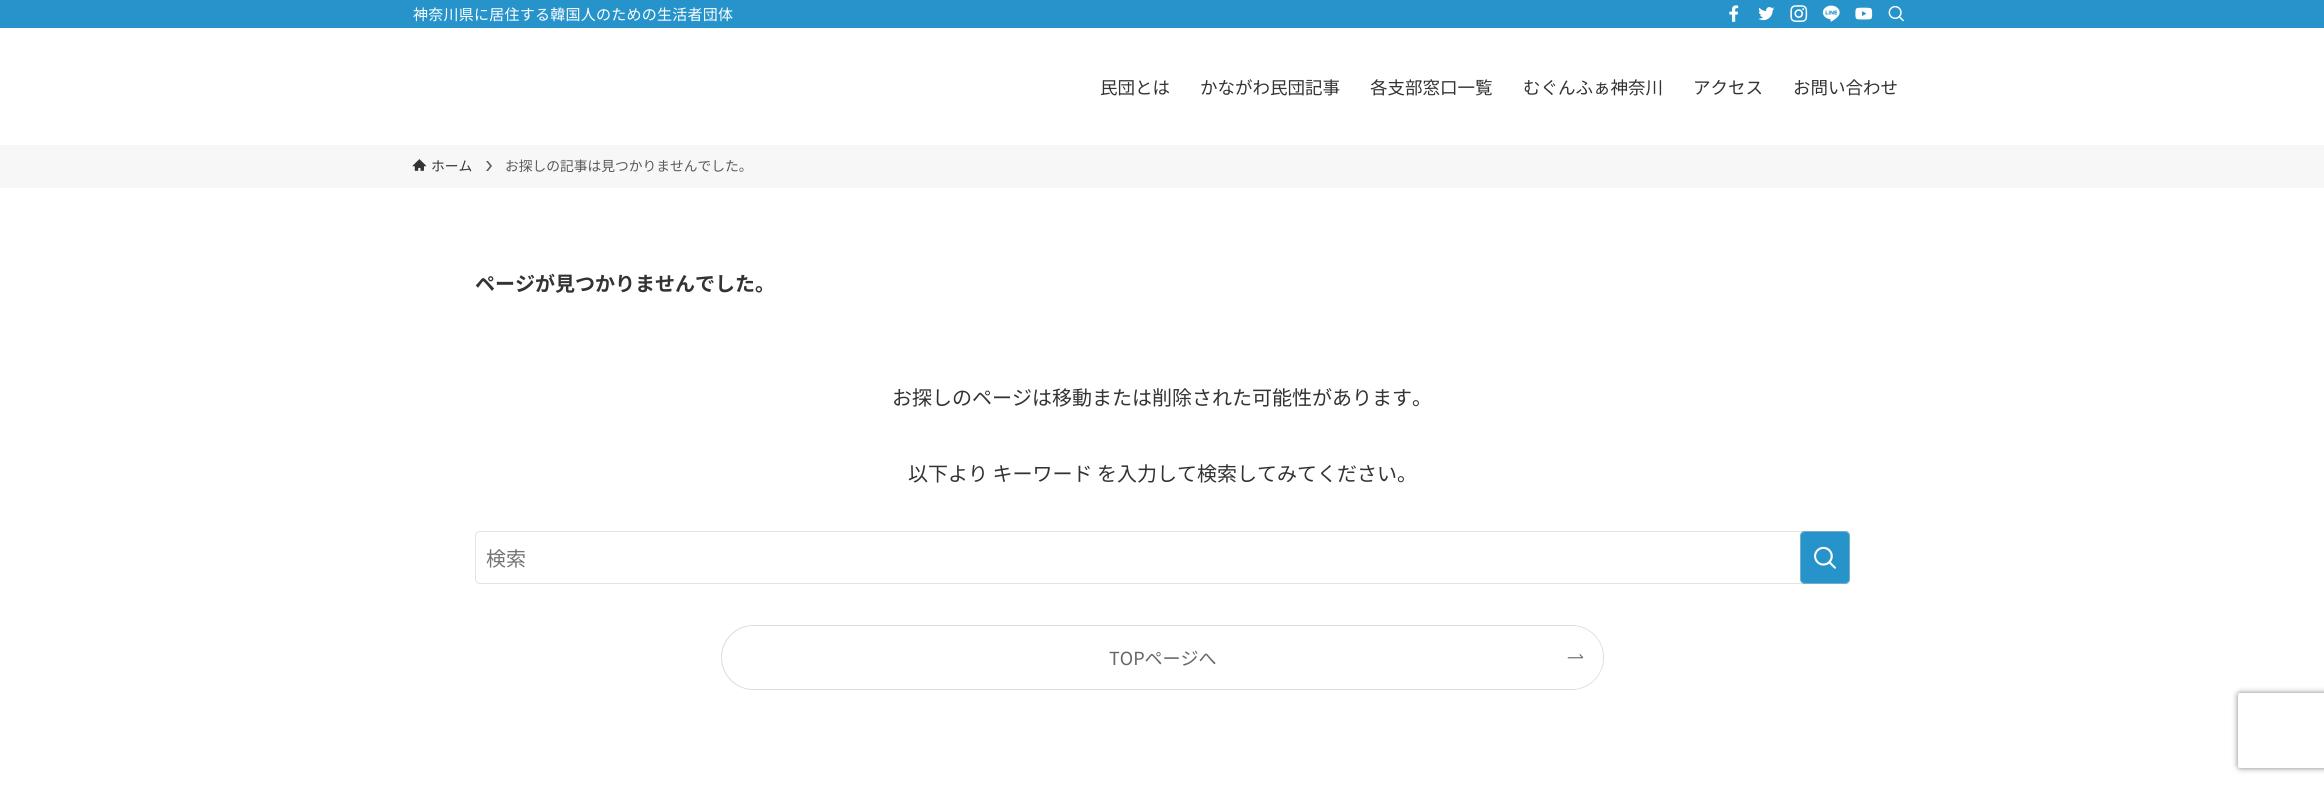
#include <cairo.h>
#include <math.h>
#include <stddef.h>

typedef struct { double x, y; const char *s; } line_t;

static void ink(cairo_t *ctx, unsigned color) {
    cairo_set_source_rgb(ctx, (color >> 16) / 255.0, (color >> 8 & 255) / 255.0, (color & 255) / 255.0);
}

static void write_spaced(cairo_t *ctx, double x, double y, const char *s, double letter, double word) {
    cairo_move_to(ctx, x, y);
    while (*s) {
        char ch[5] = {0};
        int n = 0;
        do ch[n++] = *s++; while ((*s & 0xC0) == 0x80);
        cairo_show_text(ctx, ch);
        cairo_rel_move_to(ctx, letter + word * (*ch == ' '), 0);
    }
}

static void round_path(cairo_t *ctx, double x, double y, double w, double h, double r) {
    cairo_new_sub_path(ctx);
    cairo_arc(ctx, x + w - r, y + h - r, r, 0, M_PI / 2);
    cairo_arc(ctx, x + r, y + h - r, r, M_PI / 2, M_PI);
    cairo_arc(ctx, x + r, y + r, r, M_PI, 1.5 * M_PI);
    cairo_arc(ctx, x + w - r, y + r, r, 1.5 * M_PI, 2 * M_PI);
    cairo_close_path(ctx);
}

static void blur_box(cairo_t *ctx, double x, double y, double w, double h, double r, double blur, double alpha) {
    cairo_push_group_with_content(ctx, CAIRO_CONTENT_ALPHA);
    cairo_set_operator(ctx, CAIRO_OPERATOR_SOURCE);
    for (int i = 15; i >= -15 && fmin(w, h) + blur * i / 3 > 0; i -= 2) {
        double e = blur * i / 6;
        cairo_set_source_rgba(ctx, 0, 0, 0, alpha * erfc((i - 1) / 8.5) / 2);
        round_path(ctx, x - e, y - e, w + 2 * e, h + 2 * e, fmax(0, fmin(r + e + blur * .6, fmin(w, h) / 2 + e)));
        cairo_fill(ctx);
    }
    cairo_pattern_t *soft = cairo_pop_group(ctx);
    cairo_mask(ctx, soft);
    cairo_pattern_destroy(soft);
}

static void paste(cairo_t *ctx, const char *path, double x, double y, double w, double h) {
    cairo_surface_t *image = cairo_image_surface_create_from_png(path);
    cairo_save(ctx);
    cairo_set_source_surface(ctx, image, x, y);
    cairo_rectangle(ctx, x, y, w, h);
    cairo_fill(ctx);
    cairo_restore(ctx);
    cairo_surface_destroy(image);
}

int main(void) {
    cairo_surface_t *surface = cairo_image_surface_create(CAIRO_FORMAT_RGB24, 2324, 785);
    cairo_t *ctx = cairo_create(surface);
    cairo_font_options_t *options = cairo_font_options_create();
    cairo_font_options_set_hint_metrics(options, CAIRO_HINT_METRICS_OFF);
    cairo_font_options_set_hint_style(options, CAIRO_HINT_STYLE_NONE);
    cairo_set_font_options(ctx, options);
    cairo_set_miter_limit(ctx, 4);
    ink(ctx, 0xFFFFFF);
    cairo_paint(ctx);
    ink(ctx, 0x2694CA);
    cairo_rectangle(ctx, 0, 0, 2324, 28);
    cairo_fill(ctx);
    cairo_select_font_face(ctx, "Noto Sans JP", CAIRO_FONT_SLANT_NORMAL, CAIRO_FONT_WEIGHT_NORMAL);
    cairo_set_font_size(ctx, 15);
    ink(ctx, 0xFFFFFF);
    write_spaced(ctx, 413, 20, "神奈川県に居住する韓国人のための生活者団体", 0.25, 0);
    paste(ctx, "media/1.png", 1729, 5, 10, 17);
    paste(ctx, "media/2.png", 1758, 7, 17, 14);
    paste(ctx, "media/3.png", 1790, 5, 18, 17);
    paste(ctx, "media/4.png", 1822, 5, 18, 17);
    paste(ctx, "media/5.png", 1855, 7, 18, 13);
    paste(ctx, "media/6.png", 1888, 5, 16, 17);
    cairo_set_font_size(ctx, 17.5);
    ink(ctx, 0x333333);
    {
        static const line_t items[] = {
            {1100, 94, "民団とは"},
            {1200, 94, "かながわ民団記事"},
            {1370, 94, "各支部窓口一覧"},
            {1523, 94, "むぐんふぁ神奈川"},
            {1693, 94, "アクセス"},
            {1793, 94, "お問い合わせ"},
        };
        for (size_t i = 0; i < sizeof items / sizeof *items; i++) {
            cairo_move_to(ctx, items[i].x, items[i].y);
            cairo_show_text(ctx, items[i].s);
        }
    }
    ink(ctx, 0xF7F7F7);
    cairo_rectangle(ctx, 0, 145, 2324, 43);
    cairo_fill(ctx);
    paste(ctx, "media/7.png", 412, 159, 15, 12);
    cairo_set_font_size(ctx, 13.75);
    ink(ctx, 0x333333);
    cairo_move_to(ctx, 431, 171);
    cairo_show_text(ctx, "ホーム");
    ink(ctx, 0x5A5A5A);
    cairo_new_path(ctx);
    cairo_move_to(ctx, 488, 161);
    cairo_line_to(ctx, 486, 161);
    cairo_line_to(ctx, 490, 166);
    cairo_line_to(ctx, 486, 171);
    cairo_line_to(ctx, 488, 171);
    cairo_line_to(ctx, 492, 166);
    cairo_close_path(ctx);
    cairo_fill(ctx);
    cairo_move_to(ctx, 505, 171);
    cairo_show_text(ctx, "お探しの記事は見つかりませんでした。");
    cairo_select_font_face(ctx, "Noto Sans JP", CAIRO_FONT_SLANT_NORMAL, CAIRO_FONT_WEIGHT_BOLD);
    cairo_set_font_size(ctx, 20);
    ink(ctx, 0x333333);
    cairo_move_to(ctx, 475, 291);
    cairo_show_text(ctx, "ページが見つかりませんでした。");
    cairo_select_font_face(ctx, "Noto Sans JP", CAIRO_FONT_SLANT_NORMAL, CAIRO_FONT_WEIGHT_NORMAL);
    cairo_move_to(ctx, 892, 405);
    cairo_show_text(ctx, "お探しのページは移動または削除された可能性があります。");
    cairo_move_to(ctx, 908, 481);
    cairo_show_text(ctx, "以下より キーワード を入力して検索してみてください。");
    round_path(ctx, 475.5, 531.5, 1374, 52, 4.5);
    ink(ctx, 0xE3E3E3);
    cairo_set_line_width(ctx, 1);
    cairo_stroke(ctx);
    ink(ctx, 0x757575);
    cairo_move_to(ctx, 486, 566);
    cairo_show_text(ctx, "検索");
    ink(ctx, 0x2694CA);
    round_path(ctx, 1800, 531, 50, 53, 5);
    cairo_fill(ctx);
    round_path(ctx, 1800.5, 531.5, 49, 52, 4.5);
    cairo_set_source_rgba(ctx, 0.78, 0.78, 0.78, 0.5);
    cairo_stroke(ctx);
    paste(ctx, "media/8.png", 1814, 546, 22, 23);
    round_path(ctx, 721.5, 625.5, 882, 64, 32);
    ink(ctx, 0xDCDCDC);
    cairo_stroke(ctx);
    ink(ctx, 0xFFFFFF);
    round_path(ctx, 723, 626, 880, 63, 31.5);
    cairo_fill(ctx);
    cairo_set_font_size(ctx, 18);
    ink(ctx, 0x666666);
    cairo_move_to(ctx, 1109, 665);
    cairo_show_text(ctx, "TOPページへ");
    paste(ctx, "media/9.png", 1567, 654, 17, 5);
    cairo_save(ctx);
    cairo_set_fill_rule(ctx, CAIRO_FILL_RULE_EVEN_ODD);
    cairo_new_path(ctx);
    cairo_move_to(ctx, 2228, 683);
    cairo_line_to(ctx, 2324, 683);
    cairo_line_to(ctx, 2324, 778);
    cairo_line_to(ctx, 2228, 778);
    cairo_close_path(ctx);
    cairo_move_to(ctx, 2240.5, 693);
    cairo_line_to(ctx, 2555.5, 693);
    cairo_curve_to(ctx, 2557, 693, 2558, 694, 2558, 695.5);
    cairo_line_to(ctx, 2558, 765.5);
    cairo_curve_to(ctx, 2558, 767, 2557, 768, 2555.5, 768);
    cairo_line_to(ctx, 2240.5, 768);
    cairo_curve_to(ctx, 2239, 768, 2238, 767, 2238, 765.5);
    cairo_line_to(ctx, 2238, 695.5);
    cairo_curve_to(ctx, 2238, 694, 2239, 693, 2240.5, 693);
    cairo_close_path(ctx);
    cairo_clip(ctx);
    ink(ctx, 0x808080);
    blur_box(ctx, 2238, 693, 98, 75, 2.5, 3, 1);
    cairo_restore(ctx);
    cairo_surface_write_to_png(surface, "image.png");
    cairo_font_options_destroy(options);
    cairo_destroy(ctx);
    cairo_surface_destroy(surface);
    return 0;
}
